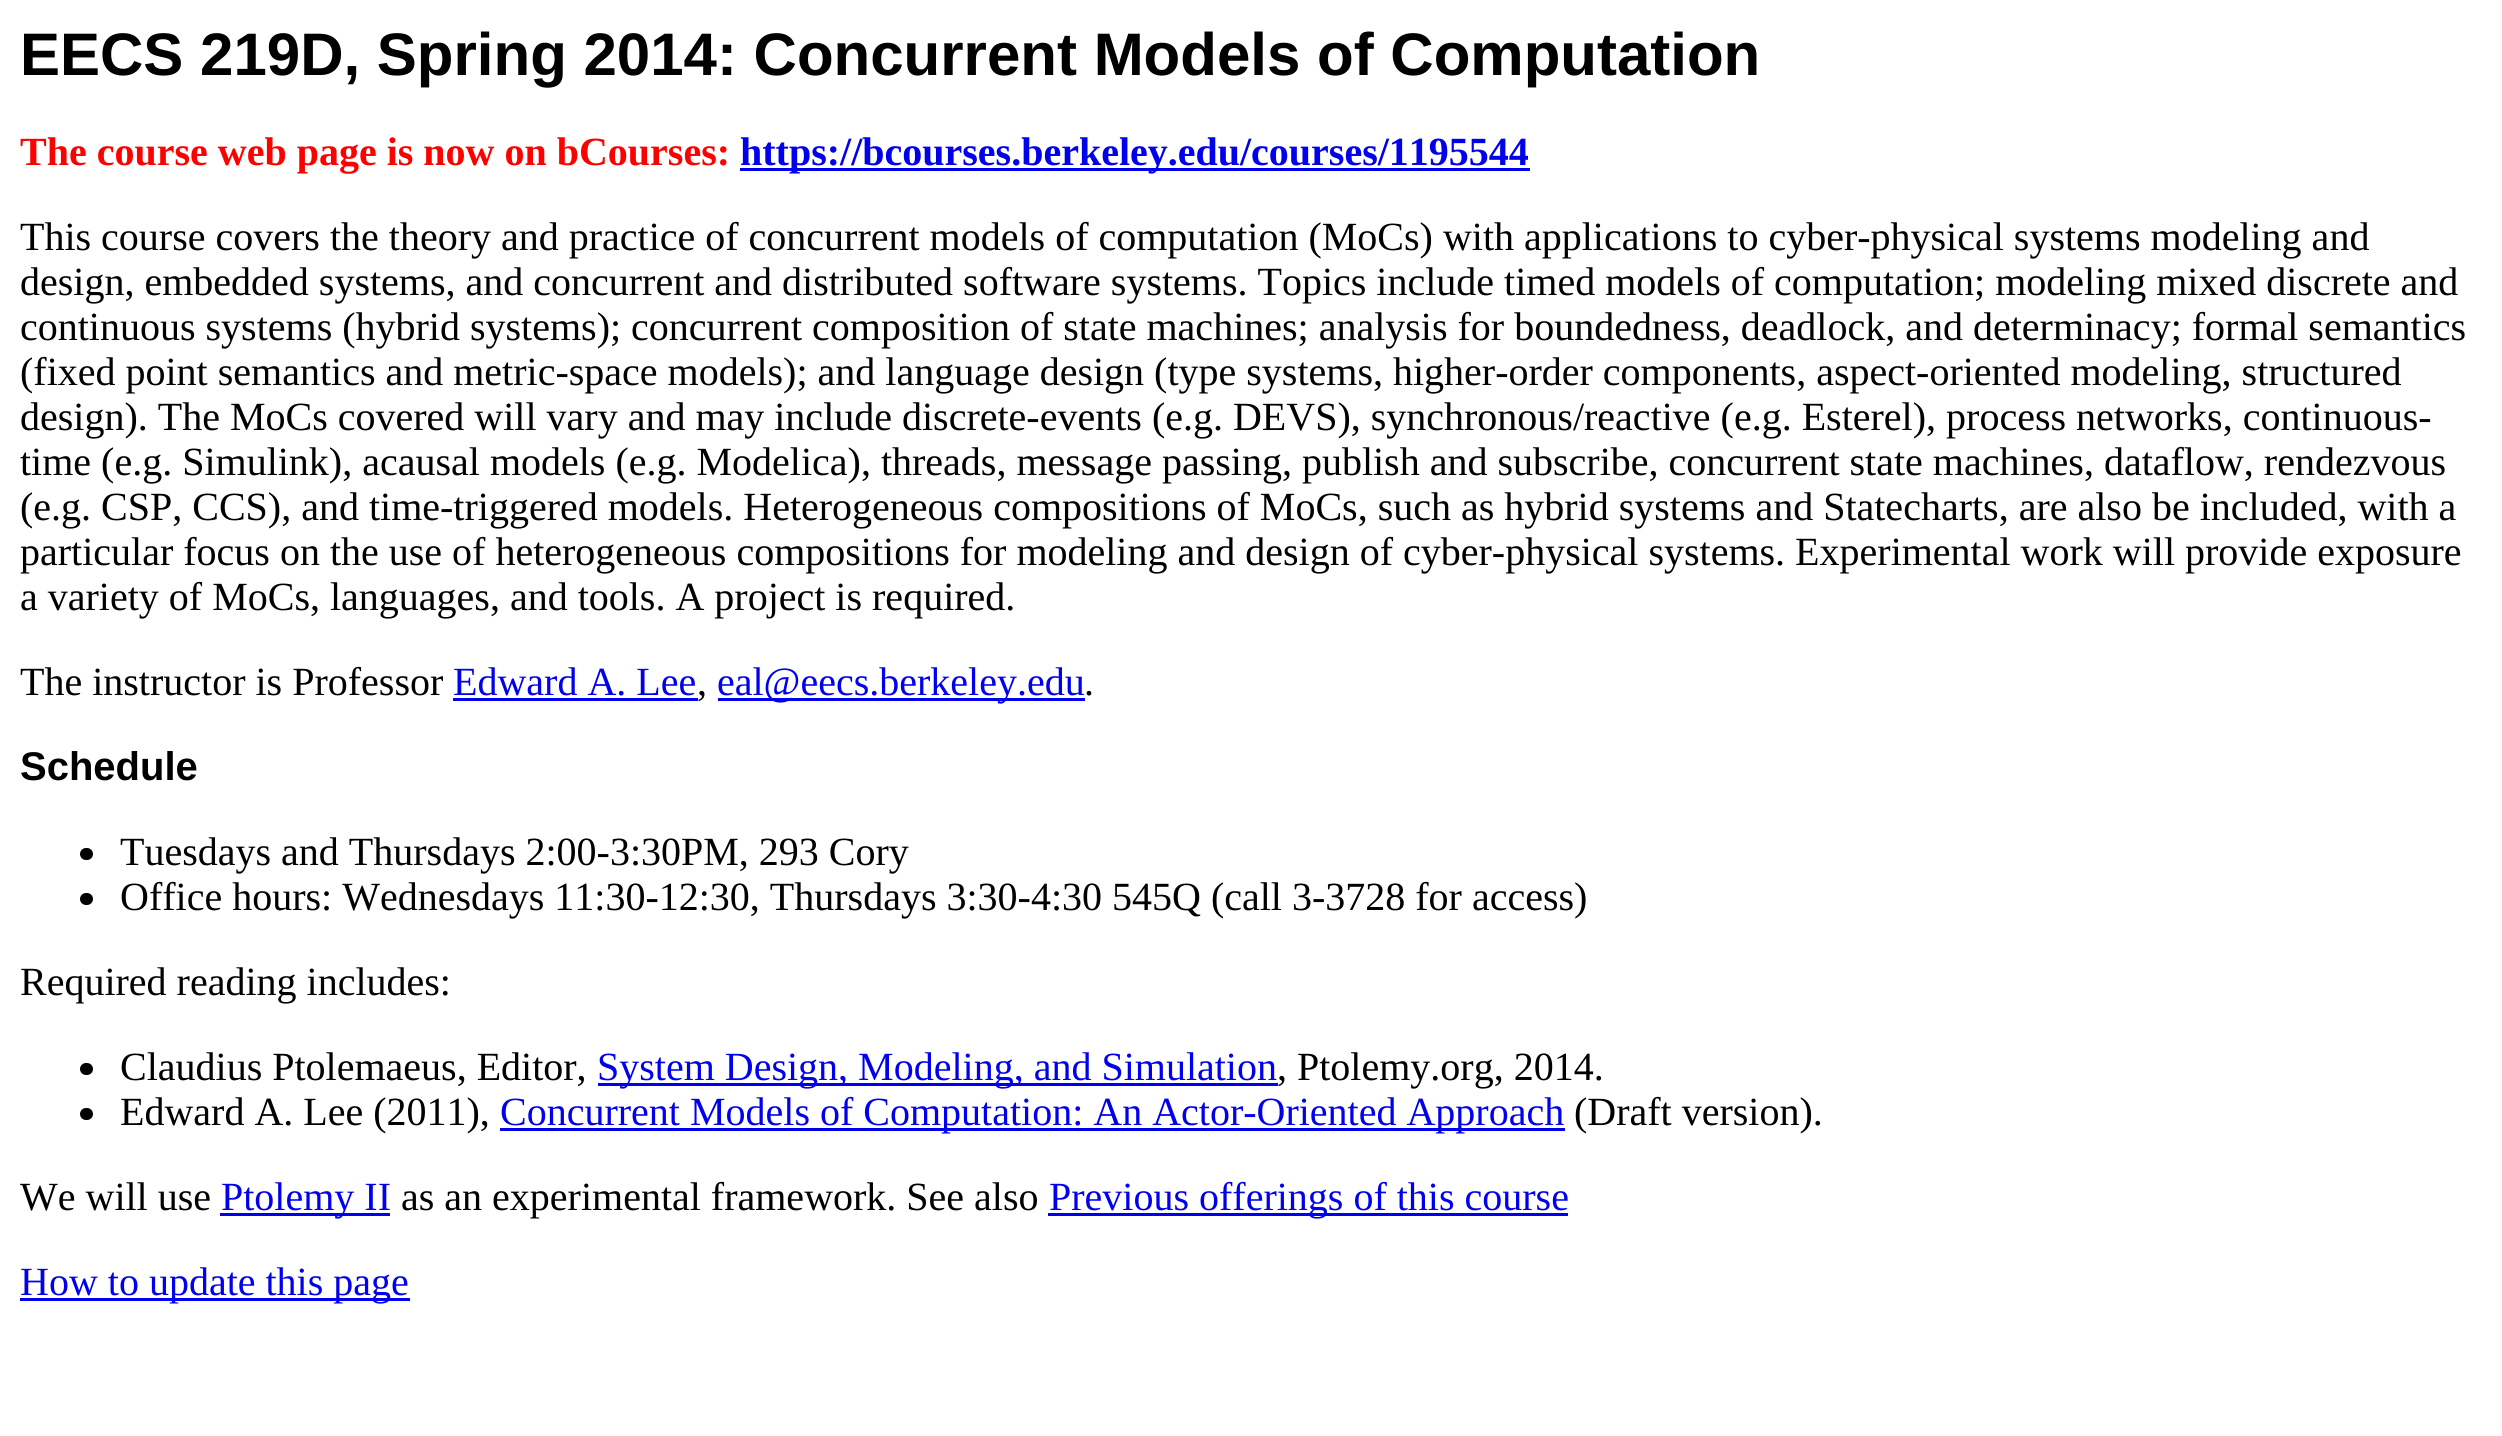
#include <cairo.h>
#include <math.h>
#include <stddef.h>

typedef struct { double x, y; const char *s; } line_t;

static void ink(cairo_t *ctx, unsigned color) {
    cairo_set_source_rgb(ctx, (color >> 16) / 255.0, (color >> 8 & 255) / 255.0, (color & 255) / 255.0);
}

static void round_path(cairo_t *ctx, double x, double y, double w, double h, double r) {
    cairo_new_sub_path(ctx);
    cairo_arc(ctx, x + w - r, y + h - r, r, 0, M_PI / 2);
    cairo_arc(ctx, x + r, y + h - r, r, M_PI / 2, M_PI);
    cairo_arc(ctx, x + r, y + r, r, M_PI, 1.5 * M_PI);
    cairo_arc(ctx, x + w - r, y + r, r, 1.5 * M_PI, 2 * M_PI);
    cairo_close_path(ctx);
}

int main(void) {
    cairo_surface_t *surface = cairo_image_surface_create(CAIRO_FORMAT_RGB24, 2502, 1436);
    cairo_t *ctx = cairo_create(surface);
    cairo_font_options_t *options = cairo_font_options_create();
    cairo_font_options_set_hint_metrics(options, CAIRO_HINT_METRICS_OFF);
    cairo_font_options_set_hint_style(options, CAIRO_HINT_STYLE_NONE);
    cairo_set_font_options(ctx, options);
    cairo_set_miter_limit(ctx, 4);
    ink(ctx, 0xFFFFFF);
    cairo_paint(ctx);
    cairo_select_font_face(ctx, "Liberation Sans", CAIRO_FONT_SLANT_NORMAL, CAIRO_FONT_WEIGHT_BOLD);
    cairo_set_font_size(ctx, 60);
    ink(ctx, 0x000000);
    cairo_move_to(ctx, 20, 75);
    cairo_show_text(ctx, "EECS 219D, Spring 2014: Concurrent Models of Computation");
    cairo_select_font_face(ctx, "Liberation Serif", CAIRO_FONT_SLANT_NORMAL, CAIRO_FONT_WEIGHT_BOLD);
    cairo_set_font_size(ctx, 40);
    ink(ctx, 0xFF0000);
    cairo_move_to(ctx, 20, 165);
    cairo_show_text(ctx, "The course web page is now on bCourses:");
    ink(ctx, 0x0000EE);
    cairo_rectangle(ctx, 740, 168, 790, 3);
    cairo_fill(ctx);
    cairo_move_to(ctx, 740, 165);
    cairo_show_text(ctx, "https://bcourses.berkeley.edu/courses/1195544");
    cairo_select_font_face(ctx, "Liberation Serif", CAIRO_FONT_SLANT_NORMAL, CAIRO_FONT_WEIGHT_NORMAL);
    ink(ctx, 0x000000);
    {
        static const line_t items[] = {
            {20, 250, "This course covers the theory and practice of concurrent models of computation (MoCs) with applications to cyber-physical systems modeling and"},
            {20, 295, "design, embedded systems, and concurrent and distributed software systems. Topics include timed models of computation; modeling mixed discrete and"},
            {20, 340, "continuous systems (hybrid systems); concurrent composition of state machines; analysis for boundedness, deadlock, and determinacy; formal semantics"},
            {20, 385, "(fixed point semantics and metric-space models); and language design (type systems, higher-order components, aspect-oriented modeling, structured"},
            {20, 430, "design). The MoCs covered will vary and may include discrete-events (e.g. DEVS), synchronous/reactive (e.g. Esterel), process networks, continuous-"},
            {20, 475, "time (e.g. Simulink), acausal models (e.g. Modelica), threads, message passing, publish and subscribe, concurrent state machines, dataflow, rendezvous"},
            {20, 520, "(e.g. CSP, CCS), and time-triggered models. Heterogeneous compositions of MoCs, such as hybrid systems and Statecharts, are also be included, with a"},
            {20, 565, "particular focus on the use of heterogeneous compositions for modeling and design of cyber-physical systems. Experimental work will provide exposure"},
            {20, 610, "a variety of MoCs, languages, and tools. A project is required."},
            {20, 695, "The instructor is Professor"},
        };
        for (size_t i = 0; i < sizeof items / sizeof *items; i++) {
            cairo_move_to(ctx, items[i].x, items[i].y);
            cairo_show_text(ctx, items[i].s);
        }
    }
    ink(ctx, 0x0000EE);
    cairo_move_to(ctx, 453, 695);
    cairo_show_text(ctx, "Edward A. Lee");
    cairo_rectangle(ctx, 453, 698, 245, 3);
    cairo_fill(ctx);
    ink(ctx, 0x000000);
    cairo_move_to(ctx, 697, 695);
    cairo_show_text(ctx, ",");
    ink(ctx, 0x0000EE);
    cairo_rectangle(ctx, 718, 698, 367, 3);
    cairo_fill(ctx);
    cairo_move_to(ctx, 717, 695);
    cairo_show_text(ctx, "eal@eecs.berkeley.edu");
    ink(ctx, 0x000000);
    cairo_move_to(ctx, 1084, 695);
    cairo_show_text(ctx, ".");
    cairo_select_font_face(ctx, "Liberation Sans", CAIRO_FONT_SLANT_NORMAL, CAIRO_FONT_WEIGHT_BOLD);
    cairo_move_to(ctx, 20, 780);
    cairo_show_text(ctx, "Schedule");
    round_path(ctx, 80, 848, 13, 12, 6);
    cairo_fill(ctx);
    cairo_select_font_face(ctx, "Liberation Serif", CAIRO_FONT_SLANT_NORMAL, CAIRO_FONT_WEIGHT_NORMAL);
    cairo_move_to(ctx, 120, 865);
    cairo_show_text(ctx, "Tuesdays and Thursdays 2:00-3:30PM, 293 Cory");
    round_path(ctx, 80, 893, 13, 12, 6);
    cairo_fill(ctx);
    cairo_move_to(ctx, 120, 910);
    cairo_show_text(ctx, "Office hours: Wednesdays 11:30-12:30, Thursdays 3:30-4:30 545Q (call 3-3728 for access)");
    cairo_move_to(ctx, 20, 995);
    cairo_show_text(ctx, "Required reading includes:");
    round_path(ctx, 80, 1063, 13, 12, 6);
    cairo_fill(ctx);
    cairo_move_to(ctx, 120, 1080);
    cairo_show_text(ctx, "Claudius Ptolemaeus, Editor,");
    ink(ctx, 0x0000EE);
    cairo_rectangle(ctx, 598, 1083, 680, 3);
    cairo_fill(ctx);
    cairo_move_to(ctx, 597, 1080);
    cairo_show_text(ctx, "System Design, Modeling, and Simulation");
    ink(ctx, 0x000000);
    cairo_move_to(ctx, 1277, 1080);
    cairo_show_text(ctx, ", Ptolemy.org, 2014.");
    round_path(ctx, 80, 1108, 13, 12, 6);
    cairo_fill(ctx);
    cairo_move_to(ctx, 120, 1125);
    cairo_show_text(ctx, "Edward A. Lee (2011),");
    ink(ctx, 0x0000EE);
    cairo_rectangle(ctx, 500, 1128, 1065, 3);
    cairo_fill(ctx);
    cairo_move_to(ctx, 500, 1125);
    cairo_show_text(ctx, "Concurrent Models of Computation: An Actor-Oriented Approach");
    ink(ctx, 0x000000);
    cairo_move_to(ctx, 1574, 1125);
    cairo_show_text(ctx, "(Draft version).");
    cairo_move_to(ctx, 20, 1210);
    cairo_show_text(ctx, "We will use");
    ink(ctx, 0x0000EE);
    cairo_rectangle(ctx, 220, 1213, 170, 3);
    cairo_fill(ctx);
    cairo_move_to(ctx, 221, 1210);
    cairo_show_text(ctx, "Ptolemy II");
    ink(ctx, 0x000000);
    cairo_move_to(ctx, 401, 1210);
    cairo_show_text(ctx, "as an experimental framework. See also");
    ink(ctx, 0x0000EE);
    cairo_rectangle(ctx, 1048, 1213, 520, 3);
    cairo_fill(ctx);
    cairo_move_to(ctx, 1049, 1210);
    cairo_show_text(ctx, "Previous offerings of this course");
    cairo_rectangle(ctx, 20, 1298, 390, 3);
    cairo_fill(ctx);
    cairo_move_to(ctx, 20, 1295);
    cairo_show_text(ctx, "How to update this page");
    cairo_surface_write_to_png(surface, "image.png");
    cairo_font_options_destroy(options);
    cairo_destroy(ctx);
    cairo_surface_destroy(surface);
    return 0;
}
